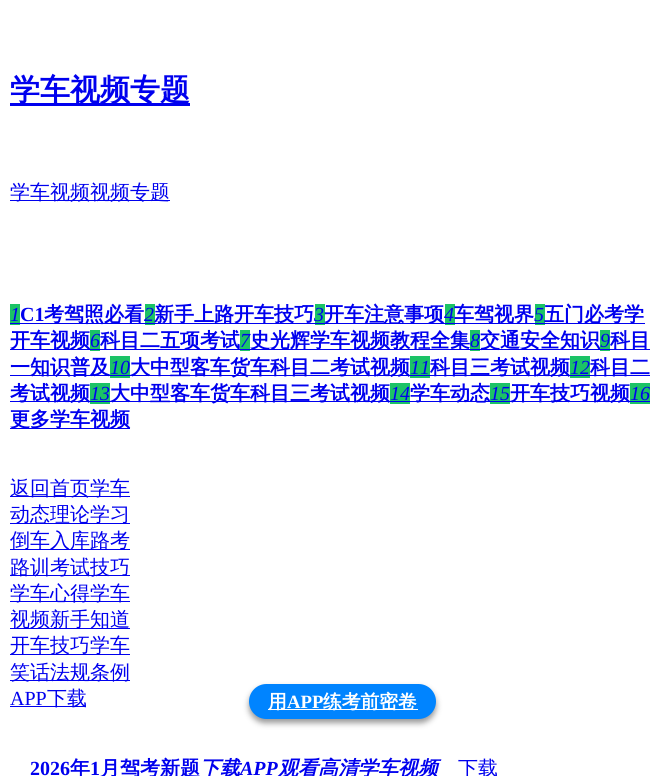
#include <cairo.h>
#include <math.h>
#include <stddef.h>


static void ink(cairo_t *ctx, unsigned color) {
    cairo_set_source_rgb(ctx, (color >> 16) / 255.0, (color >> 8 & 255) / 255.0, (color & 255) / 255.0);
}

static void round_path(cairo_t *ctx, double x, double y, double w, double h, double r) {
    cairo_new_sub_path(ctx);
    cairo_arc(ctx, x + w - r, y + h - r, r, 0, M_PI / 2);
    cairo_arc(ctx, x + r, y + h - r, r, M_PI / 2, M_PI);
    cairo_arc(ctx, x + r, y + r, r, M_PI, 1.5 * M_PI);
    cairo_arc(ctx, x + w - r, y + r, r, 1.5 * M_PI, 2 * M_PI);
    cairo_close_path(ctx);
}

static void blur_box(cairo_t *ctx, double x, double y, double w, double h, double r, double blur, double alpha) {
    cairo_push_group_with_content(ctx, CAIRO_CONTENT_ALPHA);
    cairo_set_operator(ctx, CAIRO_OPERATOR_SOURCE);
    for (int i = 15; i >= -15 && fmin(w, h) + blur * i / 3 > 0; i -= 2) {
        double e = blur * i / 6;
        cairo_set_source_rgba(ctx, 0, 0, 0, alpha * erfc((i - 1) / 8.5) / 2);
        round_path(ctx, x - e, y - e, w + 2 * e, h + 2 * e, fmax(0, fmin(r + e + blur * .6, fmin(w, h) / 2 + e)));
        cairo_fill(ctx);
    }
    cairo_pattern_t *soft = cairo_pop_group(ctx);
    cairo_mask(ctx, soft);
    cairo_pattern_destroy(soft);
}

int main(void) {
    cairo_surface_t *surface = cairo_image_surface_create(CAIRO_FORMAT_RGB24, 664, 776);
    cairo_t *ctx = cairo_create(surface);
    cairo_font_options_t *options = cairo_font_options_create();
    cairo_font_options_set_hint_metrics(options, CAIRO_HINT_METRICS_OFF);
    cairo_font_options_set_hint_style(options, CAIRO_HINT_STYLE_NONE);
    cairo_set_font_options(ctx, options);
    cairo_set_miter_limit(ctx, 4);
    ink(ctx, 0xFFFFFF);
    cairo_paint(ctx);
    ink(ctx, 0x0000EE);
    cairo_rectangle(ctx, 10, 103, 180, 3);
    cairo_fill(ctx);
    cairo_select_font_face(ctx, "WenQuanYi Zen Hei", CAIRO_FONT_SLANT_NORMAL, CAIRO_FONT_WEIGHT_BOLD);
    cairo_set_font_size(ctx, 30);
    cairo_move_to(ctx, 10, 100);
    cairo_show_text(ctx, "学车视频专题");
    cairo_rectangle(ctx, 10, 200, 160, 1);
    cairo_fill(ctx);
    cairo_select_font_face(ctx, "WenQuanYi Zen Hei Medium", CAIRO_FONT_SLANT_NORMAL, CAIRO_FONT_WEIGHT_NORMAL);
    cairo_set_font_size(ctx, 20);
    cairo_move_to(ctx, 10, 199);
    cairo_show_text(ctx, "学车视频视频专题");
    ink(ctx, 0x1BC366);
    cairo_rectangle(ctx, 10, 304, 10, 21);
    cairo_fill(ctx);
    cairo_select_font_face(ctx, "Liberation Serif", CAIRO_FONT_SLANT_ITALIC, CAIRO_FONT_WEIGHT_NORMAL);
    ink(ctx, 0x0000EE);
    cairo_move_to(ctx, 10, 321);
    cairo_show_text(ctx, "1");
    cairo_select_font_face(ctx, "Liberation Serif", CAIRO_FONT_SLANT_NORMAL, CAIRO_FONT_WEIGHT_BOLD);
    cairo_move_to(ctx, 20, 321);
    cairo_show_text(ctx, "C1");
    cairo_rectangle(ctx, 10, 323, 135, 1);
    cairo_fill(ctx);
    cairo_select_font_face(ctx, "WenQuanYi Zen Hei", CAIRO_FONT_SLANT_NORMAL, CAIRO_FONT_WEIGHT_BOLD);
    cairo_move_to(ctx, 44, 321);
    cairo_show_text(ctx, "考驾照必看");
    ink(ctx, 0x1BC366);
    cairo_rectangle(ctx, 145, 304, 10, 21);
    cairo_fill(ctx);
    cairo_select_font_face(ctx, "Liberation Serif", CAIRO_FONT_SLANT_ITALIC, CAIRO_FONT_WEIGHT_NORMAL);
    ink(ctx, 0x0000EE);
    cairo_move_to(ctx, 144, 321);
    cairo_show_text(ctx, "2");
    cairo_rectangle(ctx, 145, 323, 170, 1);
    cairo_fill(ctx);
    cairo_select_font_face(ctx, "WenQuanYi Zen Hei", CAIRO_FONT_SLANT_NORMAL, CAIRO_FONT_WEIGHT_BOLD);
    cairo_move_to(ctx, 154, 321);
    cairo_show_text(ctx, "新手上路开车技巧");
    ink(ctx, 0x1BC366);
    cairo_rectangle(ctx, 315, 304, 10, 21);
    cairo_fill(ctx);
    cairo_select_font_face(ctx, "Liberation Serif", CAIRO_FONT_SLANT_ITALIC, CAIRO_FONT_WEIGHT_NORMAL);
    ink(ctx, 0x0000EE);
    cairo_move_to(ctx, 314, 321);
    cairo_show_text(ctx, "3");
    cairo_rectangle(ctx, 315, 323, 130, 1);
    cairo_fill(ctx);
    cairo_select_font_face(ctx, "WenQuanYi Zen Hei", CAIRO_FONT_SLANT_NORMAL, CAIRO_FONT_WEIGHT_BOLD);
    cairo_move_to(ctx, 324, 321);
    cairo_show_text(ctx, "开车注意事项");
    ink(ctx, 0x1BC366);
    cairo_rectangle(ctx, 445, 304, 10, 21);
    cairo_fill(ctx);
    cairo_select_font_face(ctx, "Liberation Serif", CAIRO_FONT_SLANT_ITALIC, CAIRO_FONT_WEIGHT_NORMAL);
    ink(ctx, 0x0000EE);
    cairo_move_to(ctx, 444, 321);
    cairo_show_text(ctx, "4");
    cairo_rectangle(ctx, 445, 323, 90, 1);
    cairo_fill(ctx);
    cairo_select_font_face(ctx, "WenQuanYi Zen Hei", CAIRO_FONT_SLANT_NORMAL, CAIRO_FONT_WEIGHT_BOLD);
    cairo_move_to(ctx, 454, 321);
    cairo_show_text(ctx, "车驾视界");
    ink(ctx, 0x1BC366);
    cairo_rectangle(ctx, 535, 304, 10, 21);
    cairo_fill(ctx);
    cairo_select_font_face(ctx, "Liberation Serif", CAIRO_FONT_SLANT_ITALIC, CAIRO_FONT_WEIGHT_NORMAL);
    ink(ctx, 0x0000EE);
    cairo_move_to(ctx, 534, 321);
    cairo_show_text(ctx, "5");
    cairo_rectangle(ctx, 535, 323, 110, 1);
    cairo_fill(ctx);
    cairo_select_font_face(ctx, "WenQuanYi Zen Hei", CAIRO_FONT_SLANT_NORMAL, CAIRO_FONT_WEIGHT_BOLD);
    cairo_move_to(ctx, 544, 321);
    cairo_show_text(ctx, "五门必考学");
    cairo_rectangle(ctx, 10, 349, 80, 1);
    cairo_fill(ctx);
    cairo_move_to(ctx, 10, 347);
    cairo_show_text(ctx, "开车视频");
    ink(ctx, 0x1BC366);
    cairo_rectangle(ctx, 90, 330, 10, 21);
    cairo_fill(ctx);
    cairo_select_font_face(ctx, "Liberation Serif", CAIRO_FONT_SLANT_ITALIC, CAIRO_FONT_WEIGHT_NORMAL);
    ink(ctx, 0x0000EE);
    cairo_move_to(ctx, 90, 347);
    cairo_show_text(ctx, "6");
    cairo_rectangle(ctx, 90, 349, 150, 1);
    cairo_fill(ctx);
    cairo_select_font_face(ctx, "WenQuanYi Zen Hei", CAIRO_FONT_SLANT_NORMAL, CAIRO_FONT_WEIGHT_BOLD);
    cairo_move_to(ctx, 100, 347);
    cairo_show_text(ctx, "科目二五项考试");
    ink(ctx, 0x1BC366);
    cairo_rectangle(ctx, 240, 330, 10, 21);
    cairo_fill(ctx);
    cairo_select_font_face(ctx, "Liberation Serif", CAIRO_FONT_SLANT_ITALIC, CAIRO_FONT_WEIGHT_NORMAL);
    ink(ctx, 0x0000EE);
    cairo_move_to(ctx, 240, 347);
    cairo_show_text(ctx, "7");
    cairo_rectangle(ctx, 240, 349, 230, 1);
    cairo_fill(ctx);
    cairo_select_font_face(ctx, "WenQuanYi Zen Hei", CAIRO_FONT_SLANT_NORMAL, CAIRO_FONT_WEIGHT_BOLD);
    cairo_move_to(ctx, 250, 347);
    cairo_show_text(ctx, "史光辉学车视频教程全集");
    ink(ctx, 0x1BC366);
    cairo_rectangle(ctx, 470, 330, 10, 21);
    cairo_fill(ctx);
    cairo_select_font_face(ctx, "Liberation Serif", CAIRO_FONT_SLANT_ITALIC, CAIRO_FONT_WEIGHT_NORMAL);
    ink(ctx, 0x0000EE);
    cairo_move_to(ctx, 470, 347);
    cairo_show_text(ctx, "8");
    cairo_rectangle(ctx, 470, 349, 130, 1);
    cairo_fill(ctx);
    cairo_select_font_face(ctx, "WenQuanYi Zen Hei", CAIRO_FONT_SLANT_NORMAL, CAIRO_FONT_WEIGHT_BOLD);
    cairo_move_to(ctx, 480, 347);
    cairo_show_text(ctx, "交通安全知识");
    ink(ctx, 0x1BC366);
    cairo_rectangle(ctx, 600, 330, 10, 21);
    cairo_fill(ctx);
    cairo_select_font_face(ctx, "Liberation Serif", CAIRO_FONT_SLANT_ITALIC, CAIRO_FONT_WEIGHT_NORMAL);
    ink(ctx, 0x0000EE);
    cairo_move_to(ctx, 600, 347);
    cairo_show_text(ctx, "9");
    cairo_rectangle(ctx, 600, 349, 50, 1);
    cairo_fill(ctx);
    cairo_select_font_face(ctx, "WenQuanYi Zen Hei", CAIRO_FONT_SLANT_NORMAL, CAIRO_FONT_WEIGHT_BOLD);
    cairo_move_to(ctx, 610, 347);
    cairo_show_text(ctx, "科目");
    cairo_rectangle(ctx, 10, 375, 100, 1);
    cairo_fill(ctx);
    cairo_move_to(ctx, 10, 374);
    cairo_show_text(ctx, "一知识普及");
    ink(ctx, 0x1BC366);
    cairo_rectangle(ctx, 110, 356, 20, 22);
    cairo_fill(ctx);
    cairo_select_font_face(ctx, "Liberation Serif", CAIRO_FONT_SLANT_ITALIC, CAIRO_FONT_WEIGHT_NORMAL);
    ink(ctx, 0x0000EE);
    cairo_move_to(ctx, 110, 374);
    cairo_show_text(ctx, "10");
    cairo_rectangle(ctx, 110, 375, 300, 1);
    cairo_fill(ctx);
    cairo_select_font_face(ctx, "WenQuanYi Zen Hei", CAIRO_FONT_SLANT_NORMAL, CAIRO_FONT_WEIGHT_BOLD);
    cairo_move_to(ctx, 130, 374);
    cairo_show_text(ctx, "大中型客车货车科目二考试视频");
    ink(ctx, 0x1BC366);
    cairo_rectangle(ctx, 410, 356, 20, 22);
    cairo_fill(ctx);
    cairo_select_font_face(ctx, "Liberation Serif", CAIRO_FONT_SLANT_ITALIC, CAIRO_FONT_WEIGHT_NORMAL);
    ink(ctx, 0x0000EE);
    cairo_move_to(ctx, 410, 374);
    cairo_show_text(ctx, "11");
    cairo_rectangle(ctx, 410, 375, 160, 1);
    cairo_fill(ctx);
    cairo_select_font_face(ctx, "WenQuanYi Zen Hei", CAIRO_FONT_SLANT_NORMAL, CAIRO_FONT_WEIGHT_BOLD);
    cairo_move_to(ctx, 430, 374);
    cairo_show_text(ctx, "科目三考试视频");
    ink(ctx, 0x1BC366);
    cairo_rectangle(ctx, 570, 356, 20, 22);
    cairo_fill(ctx);
    cairo_select_font_face(ctx, "Liberation Serif", CAIRO_FONT_SLANT_ITALIC, CAIRO_FONT_WEIGHT_NORMAL);
    ink(ctx, 0x0000EE);
    cairo_move_to(ctx, 570, 374);
    cairo_show_text(ctx, "12");
    cairo_rectangle(ctx, 570, 375, 80, 1);
    cairo_fill(ctx);
    cairo_select_font_face(ctx, "WenQuanYi Zen Hei", CAIRO_FONT_SLANT_NORMAL, CAIRO_FONT_WEIGHT_BOLD);
    cairo_move_to(ctx, 590, 374);
    cairo_show_text(ctx, "科目二");
    cairo_rectangle(ctx, 10, 401, 80, 1);
    cairo_fill(ctx);
    cairo_move_to(ctx, 10, 400);
    cairo_show_text(ctx, "考试视频");
    ink(ctx, 0x1BC366);
    cairo_rectangle(ctx, 90, 383, 20, 21);
    cairo_fill(ctx);
    cairo_select_font_face(ctx, "Liberation Serif", CAIRO_FONT_SLANT_ITALIC, CAIRO_FONT_WEIGHT_NORMAL);
    ink(ctx, 0x0000EE);
    cairo_move_to(ctx, 90, 400);
    cairo_show_text(ctx, "13");
    cairo_rectangle(ctx, 90, 401, 300, 1);
    cairo_fill(ctx);
    cairo_select_font_face(ctx, "WenQuanYi Zen Hei", CAIRO_FONT_SLANT_NORMAL, CAIRO_FONT_WEIGHT_BOLD);
    cairo_move_to(ctx, 110, 400);
    cairo_show_text(ctx, "大中型客车货车科目三考试视频");
    ink(ctx, 0x1BC366);
    cairo_rectangle(ctx, 390, 383, 20, 21);
    cairo_fill(ctx);
    cairo_select_font_face(ctx, "Liberation Serif", CAIRO_FONT_SLANT_ITALIC, CAIRO_FONT_WEIGHT_NORMAL);
    ink(ctx, 0x0000EE);
    cairo_move_to(ctx, 390, 400);
    cairo_show_text(ctx, "14");
    cairo_rectangle(ctx, 390, 401, 100, 1);
    cairo_fill(ctx);
    cairo_select_font_face(ctx, "WenQuanYi Zen Hei", CAIRO_FONT_SLANT_NORMAL, CAIRO_FONT_WEIGHT_BOLD);
    cairo_move_to(ctx, 410, 400);
    cairo_show_text(ctx, "学车动态");
    ink(ctx, 0x1BC366);
    cairo_rectangle(ctx, 490, 383, 20, 21);
    cairo_fill(ctx);
    cairo_select_font_face(ctx, "Liberation Serif", CAIRO_FONT_SLANT_ITALIC, CAIRO_FONT_WEIGHT_NORMAL);
    ink(ctx, 0x0000EE);
    cairo_move_to(ctx, 490, 400);
    cairo_show_text(ctx, "15");
    cairo_rectangle(ctx, 490, 401, 140, 1);
    cairo_fill(ctx);
    cairo_select_font_face(ctx, "WenQuanYi Zen Hei", CAIRO_FONT_SLANT_NORMAL, CAIRO_FONT_WEIGHT_BOLD);
    cairo_move_to(ctx, 510, 400);
    cairo_show_text(ctx, "开车技巧视频");
    ink(ctx, 0x1BC366);
    cairo_rectangle(ctx, 630, 383, 20, 21);
    cairo_fill(ctx);
    cairo_select_font_face(ctx, "Liberation Serif", CAIRO_FONT_SLANT_ITALIC, CAIRO_FONT_WEIGHT_NORMAL);
    ink(ctx, 0x0000EE);
    cairo_move_to(ctx, 630, 400);
    cairo_show_text(ctx, "16");
    cairo_rectangle(ctx, 630, 401, 20, 1);
    cairo_fill(ctx);
    cairo_rectangle(ctx, 10, 428, 120, 1);
    cairo_fill(ctx);
    cairo_select_font_face(ctx, "WenQuanYi Zen Hei", CAIRO_FONT_SLANT_NORMAL, CAIRO_FONT_WEIGHT_BOLD);
    cairo_move_to(ctx, 10, 426);
    cairo_show_text(ctx, "更多学车视频");
    cairo_rectangle(ctx, 10, 496, 120, 1);
    cairo_fill(ctx);
    cairo_select_font_face(ctx, "WenQuanYi Zen Hei Medium", CAIRO_FONT_SLANT_NORMAL, CAIRO_FONT_WEIGHT_NORMAL);
    cairo_move_to(ctx, 10, 495);
    cairo_show_text(ctx, "返回首页学车");
    cairo_rectangle(ctx, 10, 523, 120, 1);
    cairo_fill(ctx);
    cairo_move_to(ctx, 10, 521);
    cairo_show_text(ctx, "动态理论学习");
    cairo_rectangle(ctx, 10, 549, 120, 1);
    cairo_fill(ctx);
    cairo_move_to(ctx, 10, 547);
    cairo_show_text(ctx, "倒车入库路考");
    cairo_rectangle(ctx, 10, 575, 120, 1);
    cairo_fill(ctx);
    cairo_move_to(ctx, 10, 574);
    cairo_show_text(ctx, "路训考试技巧");
    cairo_rectangle(ctx, 10, 601, 120, 1);
    cairo_fill(ctx);
    cairo_move_to(ctx, 10, 600);
    cairo_show_text(ctx, "学车心得学车");
    cairo_rectangle(ctx, 10, 628, 120, 1);
    cairo_fill(ctx);
    cairo_move_to(ctx, 10, 626);
    cairo_show_text(ctx, "视频新手知道");
    cairo_rectangle(ctx, 10, 654, 120, 1);
    cairo_fill(ctx);
    cairo_move_to(ctx, 10, 652);
    cairo_show_text(ctx, "开车技巧学车");
    cairo_rectangle(ctx, 10, 680, 120, 1);
    cairo_fill(ctx);
    cairo_move_to(ctx, 10, 679);
    cairo_show_text(ctx, "笑话法规条例");
    cairo_select_font_face(ctx, "Liberation Serif", CAIRO_FONT_SLANT_NORMAL, CAIRO_FONT_WEIGHT_NORMAL);
    cairo_move_to(ctx, 10, 705);
    cairo_show_text(ctx, "APP");
    cairo_rectangle(ctx, 10, 706, 76, 1);
    cairo_fill(ctx);
    cairo_select_font_face(ctx, "WenQuanYi Zen Hei Medium", CAIRO_FONT_SLANT_NORMAL, CAIRO_FONT_WEIGHT_NORMAL);
    cairo_move_to(ctx, 47, 705);
    cairo_show_text(ctx, "下载");
    ink(ctx, 0x999999);
    blur_box(ctx, 249, 688, 187, 35, 17.5, 3, 1);
    ink(ctx, 0x0084FF);
    round_path(ctx, 249, 684, 187, 35, 17.5);
    cairo_fill(ctx);
    ink(ctx, 0xFFFFFF);
    cairo_rectangle(ctx, 268, 709, 150, 1);
    cairo_fill(ctx);
    cairo_select_font_face(ctx, "WenQuanYi Zen Hei", CAIRO_FONT_SLANT_NORMAL, CAIRO_FONT_WEIGHT_BOLD);
    cairo_set_font_size(ctx, 18.75);
    cairo_move_to(ctx, 268, 708);
    cairo_show_text(ctx, "用");
    cairo_select_font_face(ctx, "Liberation Serif", CAIRO_FONT_SLANT_NORMAL, CAIRO_FONT_WEIGHT_BOLD);
    cairo_move_to(ctx, 287, 708);
    cairo_show_text(ctx, "APP");
    cairo_select_font_face(ctx, "WenQuanYi Zen Hei", CAIRO_FONT_SLANT_NORMAL, CAIRO_FONT_WEIGHT_BOLD);
    cairo_move_to(ctx, 323, 708);
    cairo_show_text(ctx, "练考前密卷");
    cairo_select_font_face(ctx, "Liberation Serif", CAIRO_FONT_SLANT_NORMAL, CAIRO_FONT_WEIGHT_BOLD);
    cairo_set_font_size(ctx, 20);
    ink(ctx, 0x0000EE);
    cairo_move_to(ctx, 30, 775);
    cairo_show_text(ctx, "2026");
    cairo_select_font_face(ctx, "WenQuanYi Zen Hei", CAIRO_FONT_SLANT_NORMAL, CAIRO_FONT_WEIGHT_BOLD);
    cairo_move_to(ctx, 70, 775);
    cairo_show_text(ctx, "年");
    cairo_select_font_face(ctx, "Liberation Serif", CAIRO_FONT_SLANT_NORMAL, CAIRO_FONT_WEIGHT_BOLD);
    cairo_move_to(ctx, 90, 775);
    cairo_show_text(ctx, "1");
    cairo_select_font_face(ctx, "WenQuanYi Zen Hei", CAIRO_FONT_SLANT_NORMAL, CAIRO_FONT_WEIGHT_BOLD);
    cairo_move_to(ctx, 100, 775);
    cairo_show_text(ctx, "月驾考新题");
    cairo_select_font_face(ctx, "WenQuanYi Zen Hei", CAIRO_FONT_SLANT_ITALIC, CAIRO_FONT_WEIGHT_BOLD);
    cairo_move_to(ctx, 200, 775);
    cairo_show_text(ctx, "下载");
    cairo_select_font_face(ctx, "Liberation Serif", CAIRO_FONT_SLANT_ITALIC, CAIRO_FONT_WEIGHT_BOLD);
    cairo_move_to(ctx, 240, 775);
    cairo_show_text(ctx, "APP");
    cairo_select_font_face(ctx, "WenQuanYi Zen Hei", CAIRO_FONT_SLANT_ITALIC, CAIRO_FONT_WEIGHT_BOLD);
    cairo_move_to(ctx, 278, 775);
    cairo_show_text(ctx, "观看高清学车视频");
    cairo_select_font_face(ctx, "WenQuanYi Zen Hei Medium", CAIRO_FONT_SLANT_NORMAL, CAIRO_FONT_WEIGHT_NORMAL);
    cairo_move_to(ctx, 458, 775);
    cairo_show_text(ctx, "下载");
    cairo_surface_write_to_png(surface, "image.png");
    cairo_font_options_destroy(options);
    cairo_destroy(ctx);
    cairo_surface_destroy(surface);
    return 0;
}
